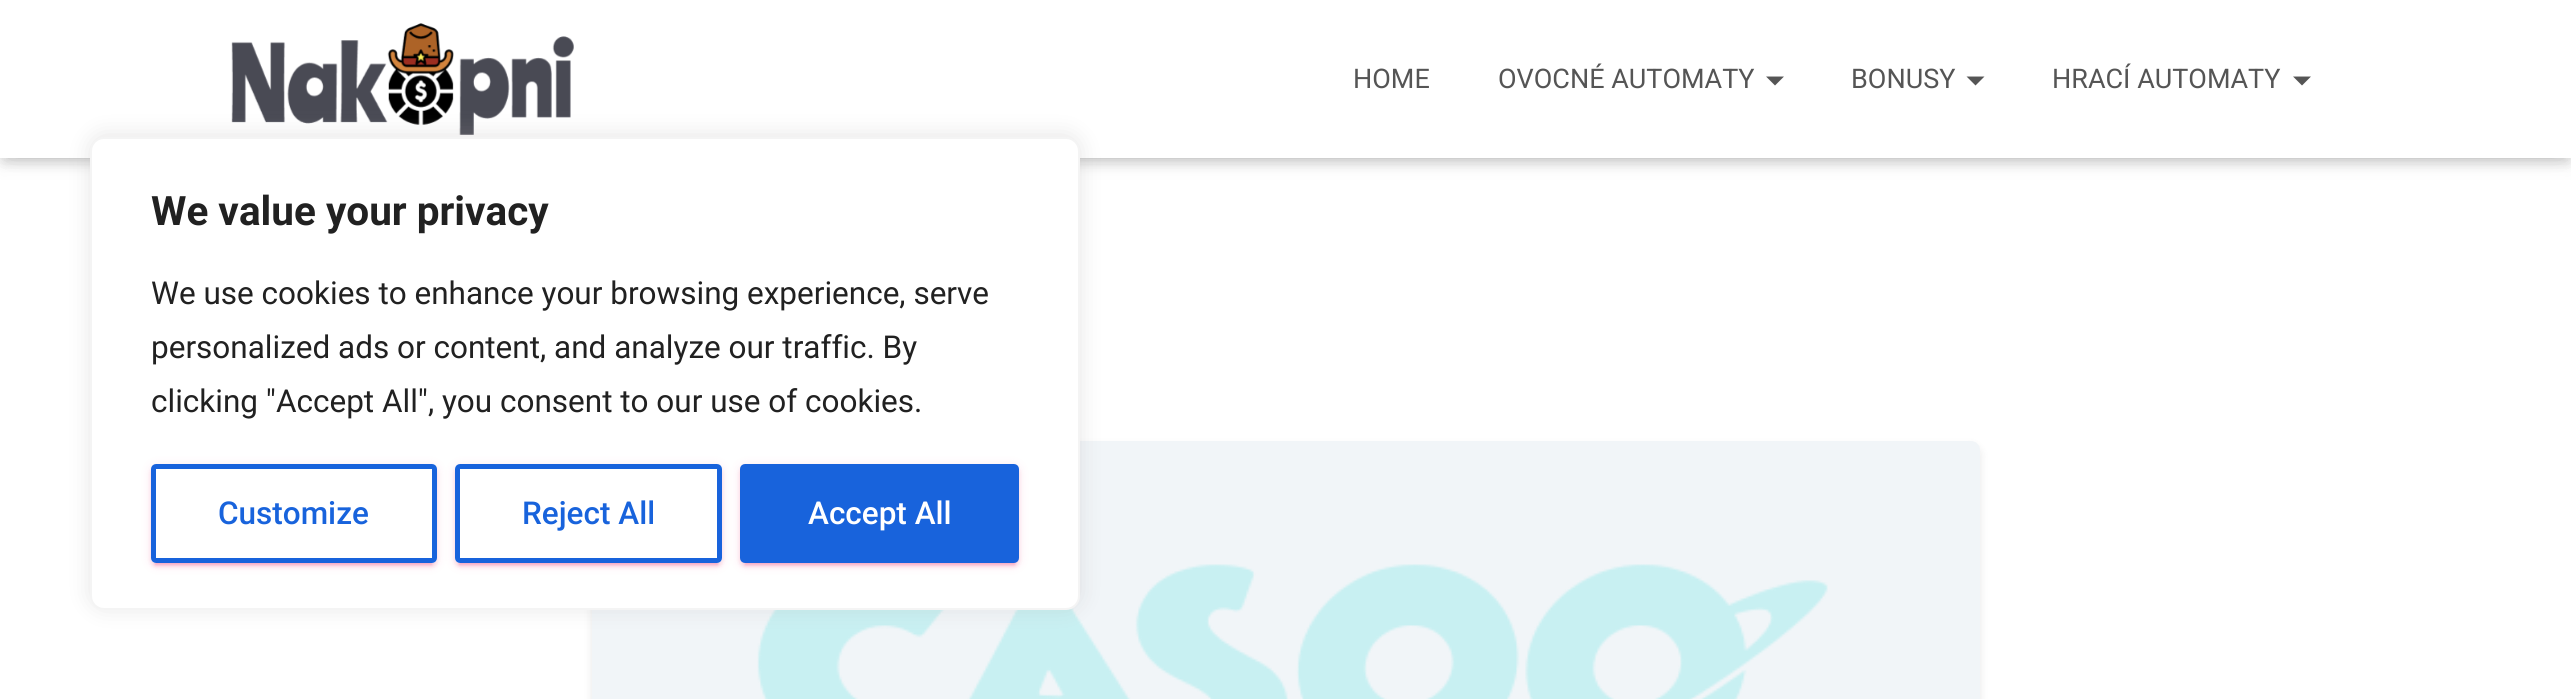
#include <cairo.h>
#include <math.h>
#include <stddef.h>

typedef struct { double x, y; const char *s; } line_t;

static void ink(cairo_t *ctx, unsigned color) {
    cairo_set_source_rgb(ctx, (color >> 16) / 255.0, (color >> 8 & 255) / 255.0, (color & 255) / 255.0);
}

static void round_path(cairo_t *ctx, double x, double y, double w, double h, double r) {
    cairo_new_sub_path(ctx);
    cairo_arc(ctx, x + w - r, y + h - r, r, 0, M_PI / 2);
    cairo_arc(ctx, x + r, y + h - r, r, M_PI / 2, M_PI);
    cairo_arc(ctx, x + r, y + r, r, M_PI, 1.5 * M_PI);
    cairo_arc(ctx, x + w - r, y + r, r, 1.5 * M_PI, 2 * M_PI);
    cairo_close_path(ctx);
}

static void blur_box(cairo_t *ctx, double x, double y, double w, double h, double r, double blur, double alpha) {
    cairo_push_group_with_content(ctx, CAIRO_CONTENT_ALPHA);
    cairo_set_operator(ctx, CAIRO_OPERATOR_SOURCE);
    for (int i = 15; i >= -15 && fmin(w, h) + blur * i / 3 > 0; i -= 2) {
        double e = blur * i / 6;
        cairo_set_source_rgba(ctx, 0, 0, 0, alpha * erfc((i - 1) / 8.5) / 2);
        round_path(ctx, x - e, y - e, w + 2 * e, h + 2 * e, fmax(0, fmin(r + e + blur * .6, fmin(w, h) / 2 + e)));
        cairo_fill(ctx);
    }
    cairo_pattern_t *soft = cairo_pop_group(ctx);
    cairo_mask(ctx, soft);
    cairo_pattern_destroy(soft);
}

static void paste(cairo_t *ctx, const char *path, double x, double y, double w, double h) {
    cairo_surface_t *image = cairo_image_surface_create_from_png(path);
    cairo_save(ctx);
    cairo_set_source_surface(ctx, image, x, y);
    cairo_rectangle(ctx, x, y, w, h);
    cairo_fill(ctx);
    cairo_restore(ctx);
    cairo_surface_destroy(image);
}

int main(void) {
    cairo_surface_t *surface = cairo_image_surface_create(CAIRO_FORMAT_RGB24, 2571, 699);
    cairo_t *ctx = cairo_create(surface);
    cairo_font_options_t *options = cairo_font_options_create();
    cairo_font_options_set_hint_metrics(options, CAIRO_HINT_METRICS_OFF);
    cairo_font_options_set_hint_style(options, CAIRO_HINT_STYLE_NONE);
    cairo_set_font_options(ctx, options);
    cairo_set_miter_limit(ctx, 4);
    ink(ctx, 0xFFFFFF);
    cairo_paint(ctx);
    ink(ctx, 0x000000);
    blur_box(ctx, 5, 14, 2562, 148, 0, 5.5, 0.1);
    blur_box(ctx, 0, 2, 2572, 158, 0, 11, 0.12);
    blur_box(ctx, 14, 16, 2544, 130, 0, 11, 0.42);
    ink(ctx, 0xFFFFFF);
    cairo_rectangle(ctx, 0, 0, 2571, 158);
    cairo_fill(ctx);
    paste(ctx, "media/1.png", 231, 23, 343, 112);
    cairo_select_font_face(ctx, "Roboto", CAIRO_FONT_SLANT_NORMAL, CAIRO_FONT_WEIGHT_NORMAL);
    cairo_set_font_size(ctx, 27);
    ink(ctx, 0x555555);
    cairo_move_to(ctx, 1353, 88);
    cairo_show_text(ctx, "HOME");
    cairo_move_to(ctx, 1498, 88);
    cairo_show_text(ctx, "OVOCNÉ AUTOMATY");
    cairo_new_path(ctx);
    cairo_move_to(ctx, 1766, 76.5);
    cairo_line_to(ctx, 1784, 76.5);
    cairo_line_to(ctx, 1775, 85.5);
    cairo_close_path(ctx);
    cairo_fill(ctx);
    cairo_move_to(ctx, 1851, 88);
    cairo_show_text(ctx, "BONUSY");
    cairo_new_path(ctx);
    cairo_move_to(ctx, 1966.5, 76.5);
    cairo_line_to(ctx, 1984.5, 76.5);
    cairo_line_to(ctx, 1975.5, 85.5);
    cairo_close_path(ctx);
    cairo_fill(ctx);
    cairo_move_to(ctx, 2052, 88);
    cairo_show_text(ctx, "HRACÍ AUTOMATY");
    cairo_new_path(ctx);
    cairo_move_to(ctx, 2293, 76.5);
    cairo_line_to(ctx, 2311, 76.5);
    cairo_line_to(ctx, 2302, 85.5);
    cairo_close_path(ctx);
    cairo_fill(ctx);
    ink(ctx, 0x000000);
    blur_box(ctx, 592, 446, 1388, 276, 9, 4.5, 0.1);
    ink(ctx, 0xF1F5F8);
    round_path(ctx, 592, 441, 1388, 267, 9);
    cairo_fill(ctx);
    paste(ctx, "media/2.png", 757, 564, 1071, 135);
    ink(ctx, 0xACABAB);
    blur_box(ctx, 90, 135, 990, 473, 14, 11, 0.3);
    ink(ctx, 0xFFFFFF);
    round_path(ctx, 91, 138, 988, 471, 13);
    cairo_fill_preserve(ctx);
    ink(ctx, 0xF4F4F4);
    cairo_stroke(ctx);
    cairo_select_font_face(ctx, "Roboto", CAIRO_FONT_SLANT_NORMAL, CAIRO_FONT_WEIGHT_BOLD);
    cairo_set_font_size(ctx, 40.5);
    ink(ctx, 0x212121);
    cairo_move_to(ctx, 151, 225);
    cairo_show_text(ctx, "We value your privacy");
    cairo_select_font_face(ctx, "Roboto", CAIRO_FONT_SLANT_NORMAL, CAIRO_FONT_WEIGHT_NORMAL);
    cairo_set_font_size(ctx, 31.5);
    {
        static const line_t items[] = {
            {151, 304, "We use cookies to enhance your browsing experience, serve"},
            {151, 358, "personalized ads or content, and analyze our traffic. By"},
            {151, 412, "clicking \"Accept All\", you consent to our use of cookies."},
        };
        for (size_t i = 0; i < sizeof items / sizeof *items; i++) {
            cairo_move_to(ctx, items[i].x, items[i].y);
            cairo_show_text(ctx, items[i].s);
        }
    }
    cairo_save(ctx);
    cairo_set_fill_rule(ctx, CAIRO_FILL_RULE_EVEN_ODD);
    cairo_new_path(ctx);
    cairo_move_to(ctx, 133, 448);
    cairo_line_to(ctx, 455, 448);
    cairo_line_to(ctx, 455, 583);
    cairo_line_to(ctx, 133, 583);
    cairo_close_path(ctx);
    cairo_move_to(ctx, 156, 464);
    cairo_line_to(ctx, 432, 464);
    cairo_curve_to(ctx, 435, 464, 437, 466, 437, 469);
    cairo_line_to(ctx, 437, 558);
    cairo_curve_to(ctx, 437, 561, 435, 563, 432, 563);
    cairo_line_to(ctx, 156, 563);
    cairo_curve_to(ctx, 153, 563, 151, 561, 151, 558);
    cairo_line_to(ctx, 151, 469);
    cairo_curve_to(ctx, 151, 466, 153, 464, 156, 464);
    cairo_close_path(ctx);
    cairo_clip(ctx);
    ink(ctx, 0xE91E63);
    blur_box(ctx, 151, 466, 286, 99, 5, 5.5, 0.12);
    cairo_restore(ctx);
    cairo_save(ctx);
    cairo_set_fill_rule(ctx, CAIRO_FILL_RULE_EVEN_ODD);
    cairo_new_path(ctx);
    cairo_move_to(ctx, 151, 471);
    cairo_line_to(ctx, 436, 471);
    cairo_line_to(ctx, 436, 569);
    cairo_line_to(ctx, 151, 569);
    cairo_close_path(ctx);
    cairo_move_to(ctx, 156, 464);
    cairo_line_to(ctx, 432, 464);
    cairo_curve_to(ctx, 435, 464, 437, 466, 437, 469);
    cairo_line_to(ctx, 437, 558);
    cairo_curve_to(ctx, 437, 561, 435, 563, 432, 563);
    cairo_line_to(ctx, 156, 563);
    cairo_curve_to(ctx, 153, 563, 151, 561, 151, 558);
    cairo_line_to(ctx, 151, 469);
    cairo_curve_to(ctx, 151, 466, 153, 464, 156, 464);
    cairo_close_path(ctx);
    cairo_clip(ctx);
    ink(ctx, 0xE91E63);
    blur_box(ctx, 155, 475, 277, 90, 0, 1, 0.2);
    cairo_restore(ctx);
    cairo_save(ctx);
    cairo_set_fill_rule(ctx, CAIRO_FILL_RULE_EVEN_ODD);
    cairo_new_path(ctx);
    cairo_move_to(ctx, 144, 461);
    cairo_line_to(ctx, 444, 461);
    cairo_line_to(ctx, 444, 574);
    cairo_line_to(ctx, 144, 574);
    cairo_close_path(ctx);
    cairo_move_to(ctx, 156, 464);
    cairo_line_to(ctx, 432, 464);
    cairo_curve_to(ctx, 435, 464, 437, 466, 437, 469);
    cairo_line_to(ctx, 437, 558);
    cairo_curve_to(ctx, 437, 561, 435, 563, 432, 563);
    cairo_line_to(ctx, 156, 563);
    cairo_curve_to(ctx, 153, 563, 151, 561, 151, 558);
    cairo_line_to(ctx, 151, 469);
    cairo_curve_to(ctx, 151, 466, 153, 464, 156, 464);
    cairo_close_path(ctx);
    cairo_clip(ctx);
    ink(ctx, 0xE91E63);
    blur_box(ctx, 151, 468, 286, 99, 5, 2, 0.14);
    cairo_restore(ctx);
    round_path(ctx, 153.5, 466.5, 281, 94, 2.5);
    ink(ctx, 0x1863DC);
    cairo_set_line_width(ctx, 5);
    cairo_stroke(ctx);
    cairo_select_font_face(ctx, "Roboto Medium", CAIRO_FONT_SLANT_NORMAL, CAIRO_FONT_WEIGHT_NORMAL);
    cairo_move_to(ctx, 218, 524);
    cairo_show_text(ctx, "Customize");
    cairo_save(ctx);
    cairo_set_fill_rule(ctx, CAIRO_FILL_RULE_EVEN_ODD);
    cairo_new_path(ctx);
    cairo_move_to(ctx, 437, 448);
    cairo_line_to(ctx, 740, 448);
    cairo_line_to(ctx, 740, 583);
    cairo_line_to(ctx, 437, 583);
    cairo_close_path(ctx);
    cairo_move_to(ctx, 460, 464);
    cairo_line_to(ctx, 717, 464);
    cairo_curve_to(ctx, 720, 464, 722, 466, 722, 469);
    cairo_line_to(ctx, 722, 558);
    cairo_curve_to(ctx, 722, 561, 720, 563, 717, 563);
    cairo_line_to(ctx, 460, 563);
    cairo_curve_to(ctx, 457, 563, 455, 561, 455, 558);
    cairo_line_to(ctx, 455, 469);
    cairo_curve_to(ctx, 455, 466, 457, 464, 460, 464);
    cairo_close_path(ctx);
    cairo_clip(ctx);
    ink(ctx, 0xE91E63);
    blur_box(ctx, 455, 466, 267, 99, 5, 5.5, 0.12);
    cairo_restore(ctx);
    cairo_save(ctx);
    cairo_set_fill_rule(ctx, CAIRO_FILL_RULE_EVEN_ODD);
    cairo_new_path(ctx);
    cairo_move_to(ctx, 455, 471);
    cairo_line_to(ctx, 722, 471);
    cairo_line_to(ctx, 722, 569);
    cairo_line_to(ctx, 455, 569);
    cairo_close_path(ctx);
    cairo_move_to(ctx, 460, 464);
    cairo_line_to(ctx, 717, 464);
    cairo_curve_to(ctx, 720, 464, 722, 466, 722, 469);
    cairo_line_to(ctx, 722, 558);
    cairo_curve_to(ctx, 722, 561, 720, 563, 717, 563);
    cairo_line_to(ctx, 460, 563);
    cairo_curve_to(ctx, 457, 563, 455, 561, 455, 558);
    cairo_line_to(ctx, 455, 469);
    cairo_curve_to(ctx, 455, 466, 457, 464, 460, 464);
    cairo_close_path(ctx);
    cairo_clip(ctx);
    ink(ctx, 0xE91E63);
    blur_box(ctx, 459, 475, 259, 90, 0, 1, 0.2);
    cairo_restore(ctx);
    cairo_save(ctx);
    cairo_set_fill_rule(ctx, CAIRO_FILL_RULE_EVEN_ODD);
    cairo_new_path(ctx);
    cairo_move_to(ctx, 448, 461);
    cairo_line_to(ctx, 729, 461);
    cairo_line_to(ctx, 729, 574);
    cairo_line_to(ctx, 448, 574);
    cairo_close_path(ctx);
    cairo_move_to(ctx, 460, 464);
    cairo_line_to(ctx, 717, 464);
    cairo_curve_to(ctx, 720, 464, 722, 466, 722, 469);
    cairo_line_to(ctx, 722, 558);
    cairo_curve_to(ctx, 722, 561, 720, 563, 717, 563);
    cairo_line_to(ctx, 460, 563);
    cairo_curve_to(ctx, 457, 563, 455, 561, 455, 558);
    cairo_line_to(ctx, 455, 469);
    cairo_curve_to(ctx, 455, 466, 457, 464, 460, 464);
    cairo_close_path(ctx);
    cairo_clip(ctx);
    ink(ctx, 0xE91E63);
    blur_box(ctx, 455, 468, 267, 99, 5, 2, 0.14);
    cairo_restore(ctx);
    round_path(ctx, 457.5, 466.5, 262, 94, 2.5);
    cairo_stroke(ctx);
    cairo_move_to(ctx, 522, 524);
    cairo_show_text(ctx, "Reject All");
    ink(ctx, 0xE91E63);
    blur_box(ctx, 740, 466, 279, 99, 5, 5.5, 0.12);
    blur_box(ctx, 745, 475, 270, 90, 0, 1, 0.2);
    blur_box(ctx, 740, 468, 279, 99, 5, 2, 0.14);
    ink(ctx, 0x1863DC);
    round_path(ctx, 742.5, 466.5, 274, 94, 2.5);
    cairo_fill_preserve(ctx);
    cairo_stroke(ctx);
    ink(ctx, 0xFFFFFF);
    cairo_move_to(ctx, 808, 524);
    cairo_show_text(ctx, "Accept All");
    cairo_surface_write_to_png(surface, "image.png");
    cairo_font_options_destroy(options);
    cairo_destroy(ctx);
    cairo_surface_destroy(surface);
    return 0;
}
